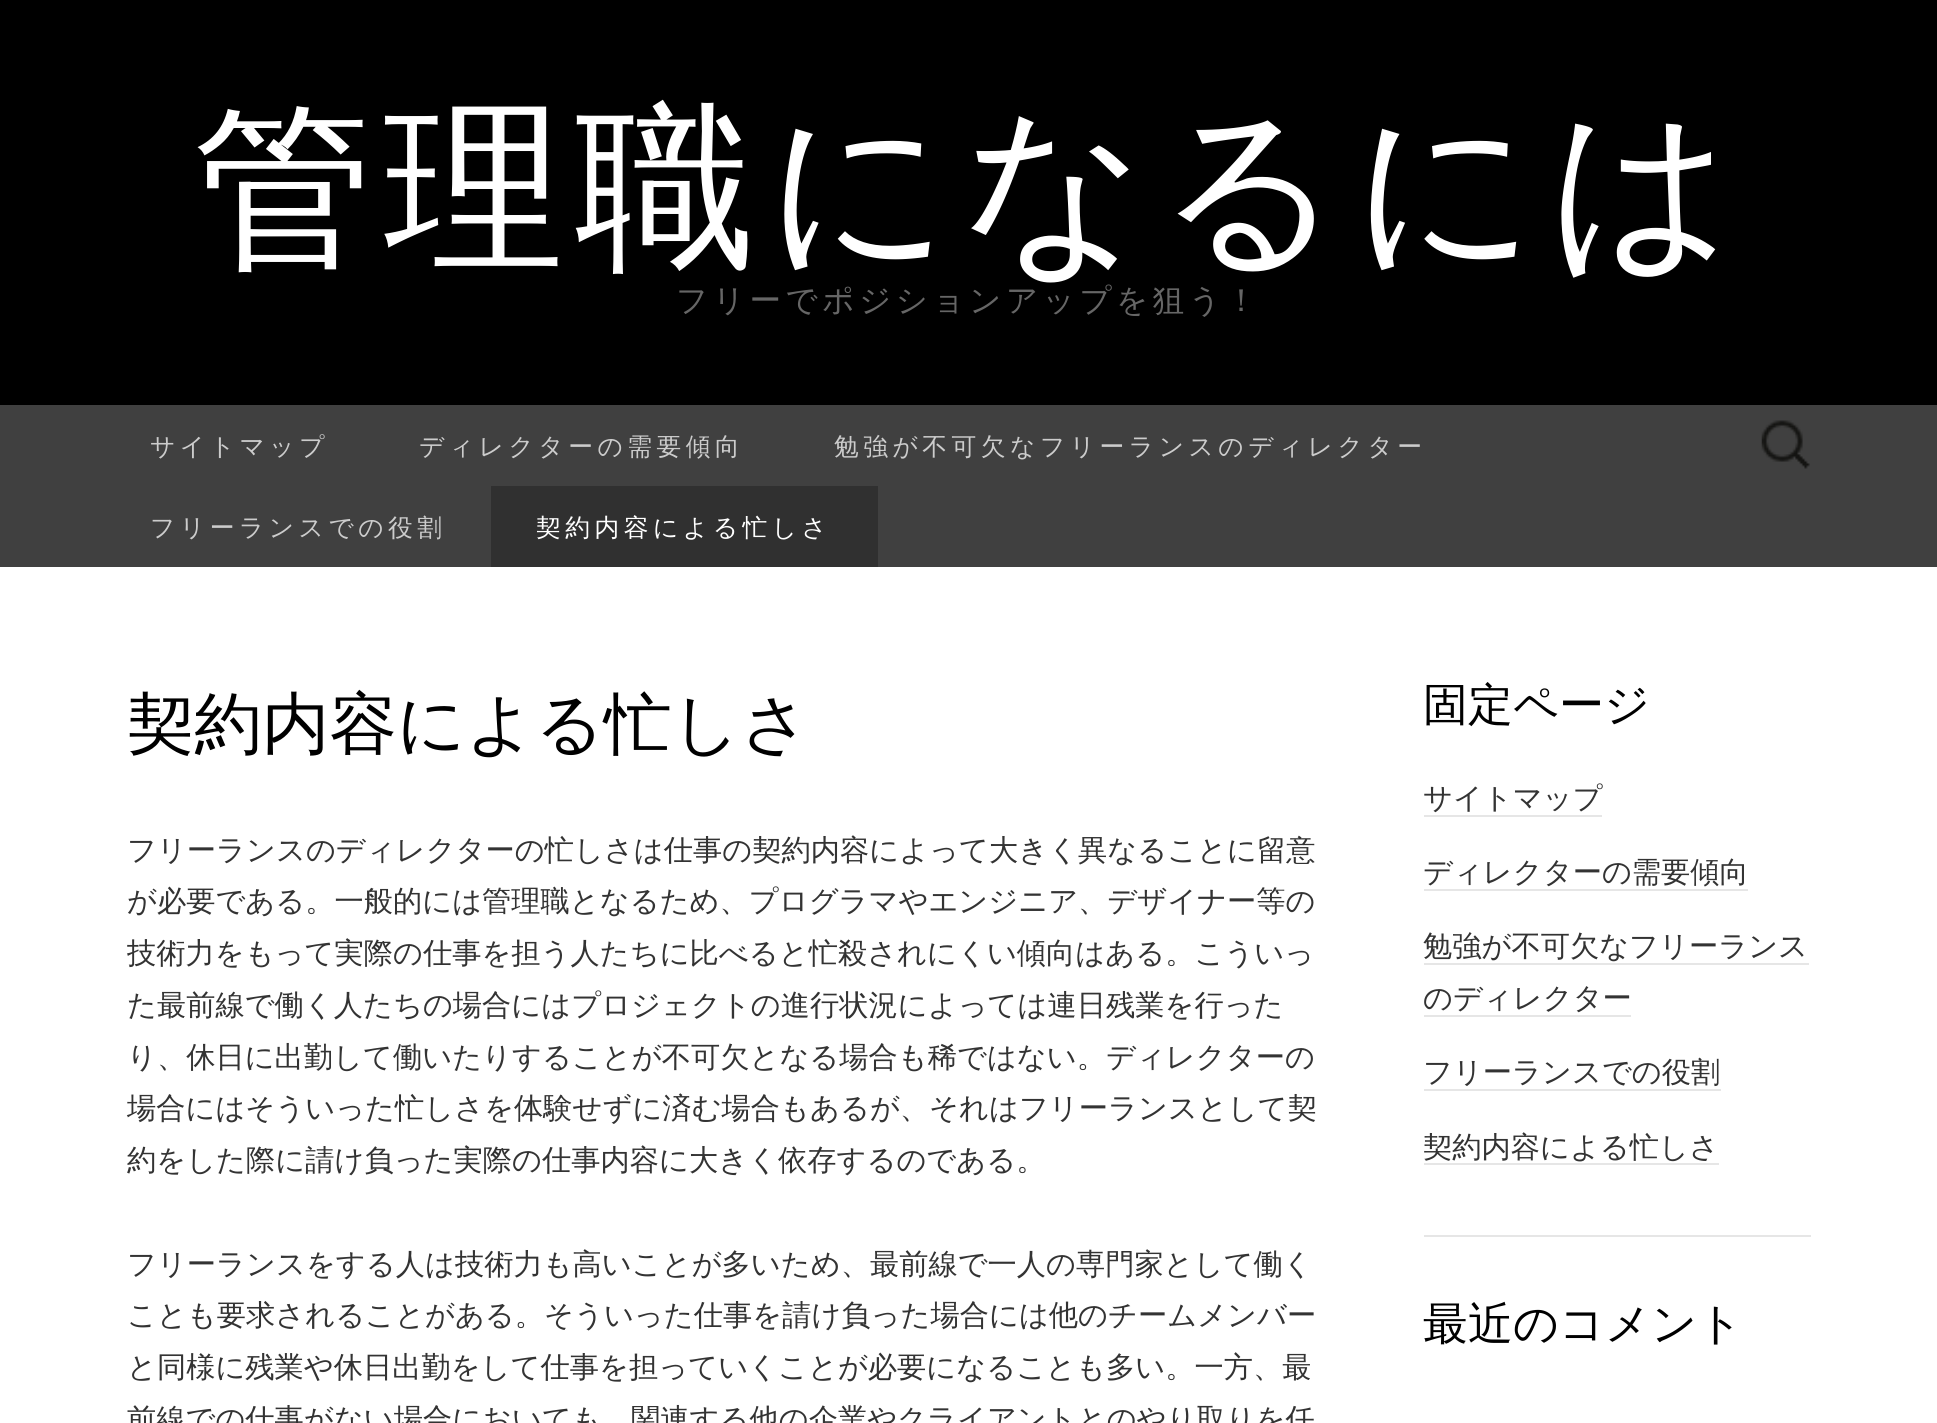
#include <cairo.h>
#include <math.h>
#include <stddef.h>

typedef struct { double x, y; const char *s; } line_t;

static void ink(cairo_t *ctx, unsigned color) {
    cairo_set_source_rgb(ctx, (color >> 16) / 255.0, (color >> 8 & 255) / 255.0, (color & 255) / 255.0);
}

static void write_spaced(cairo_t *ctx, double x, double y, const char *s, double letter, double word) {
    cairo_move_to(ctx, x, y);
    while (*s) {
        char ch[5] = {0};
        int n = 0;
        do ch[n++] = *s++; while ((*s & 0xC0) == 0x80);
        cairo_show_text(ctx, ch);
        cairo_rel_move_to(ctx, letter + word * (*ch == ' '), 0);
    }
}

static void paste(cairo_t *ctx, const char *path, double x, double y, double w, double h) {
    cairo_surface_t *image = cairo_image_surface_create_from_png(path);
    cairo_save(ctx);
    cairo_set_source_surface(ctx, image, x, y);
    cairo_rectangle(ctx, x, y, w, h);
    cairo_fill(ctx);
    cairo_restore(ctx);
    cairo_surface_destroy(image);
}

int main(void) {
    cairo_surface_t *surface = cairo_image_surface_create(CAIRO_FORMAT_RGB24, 1937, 1423);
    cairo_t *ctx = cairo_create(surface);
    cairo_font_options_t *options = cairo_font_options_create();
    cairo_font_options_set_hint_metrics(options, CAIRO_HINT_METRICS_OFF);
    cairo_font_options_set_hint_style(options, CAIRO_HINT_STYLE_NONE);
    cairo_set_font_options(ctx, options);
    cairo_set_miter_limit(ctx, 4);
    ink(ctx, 0xFFFFFF);
    cairo_paint(ctx);
    ink(ctx, 0x000000);
    cairo_rectangle(ctx, 0, 0, 1937, 405);
    cairo_fill(ctx);
    cairo_select_font_face(ctx, "WenQuanYi Zen Hei Medium", CAIRO_FONT_SLANT_NORMAL, CAIRO_FONT_WEIGHT_NORMAL);
    cairo_set_font_size(ctx, 180);
    ink(ctx, 0xFFFFFF);
    write_spaced(ctx, 193, 250, "管理職になるには", 11.25, 0);
    cairo_set_font_size(ctx, 31.5);
    ink(ctx, 0x666666);
    write_spaced(ctx, 676, 311, "フリーでポジションアップを狙う！", 4.5, 0);
    ink(ctx, 0x404040);
    cairo_rectangle(ctx, 0, 405, 1937, 162);
    cairo_fill(ctx);
    cairo_set_font_size(ctx, 24.75);
    ink(ctx, 0xCCCCCC);
    {
        static const line_t items[] = {
            {150, 455, "サイトマップ"},
            {419, 455, "ディレクターの需要傾向"},
            {834, 455, "勉強が不可欠なフリーランスのディレクター"},
            {150, 536, "フリーランスでの役割"},
        };
        for (size_t i = 0; i < sizeof items / sizeof *items; i++) {
            write_spaced(ctx, items[i].x, items[i].y, items[i].s, 4.5, 0);
        }
    }
    ink(ctx, 0x303030);
    cairo_rectangle(ctx, 491, 486, 387, 81);
    cairo_fill(ctx);
    ink(ctx, 0xFFFFFF);
    write_spaced(ctx, 536, 536, "契約内容による忙しさ", 4.5, 0);
    paste(ctx, "media/1.png", 1761, 420, 49, 49);
    cairo_set_font_size(ctx, 67.5);
    ink(ctx, 0x000000);
    cairo_move_to(ctx, 127, 747);
    cairo_show_text(ctx, "契約内容による忙しさ");
    cairo_set_font_size(ctx, 29.25);
    ink(ctx, 0x333333);
    {
        static const line_t items[] = {
            {127, 860, "フリーランスのディレクターの忙しさは仕事の契約内容によって大きく異なることに留意"},
            {127, 911, "が必要である。一般的には管理職となるため、プログラマやエンジニア、デザイナー等の"},
            {127, 963, "技術力をもって実際の仕事を担う人たちに比べると忙殺されにくい傾向はある。こういっ"},
            {127, 1015, "た最前線で働く人たちの場合にはプロジェクトの進行状況によっては連日残業を行った"},
            {127, 1067, "り、休日に出勤して働いたりすることが不可欠となる場合も稀ではない。ディレクターの"},
            {127, 1118, "場合にはそういった忙しさを体験せずに済む場合もあるが、それはフリーランスとして契"},
            {127, 1170, "約をした際に請け負った実際の仕事内容に大きく依存するのである。"},
            {127, 1274, "フリーランスをする人は技術力も高いことが多いため、最前線で一人の専門家として働く"},
            {127, 1325, "ことも要求されることがある。そういった仕事を請け負った場合には他のチームメンバー"},
            {127, 1377, "と同様に残業や休日出勤をして仕事を担っていくことが必要になることも多い。一方、最"},
            {127, 1429, "前線での仕事がない場合においても、関連する他の企業やクライアントとのやり取りを任"},
        };
        for (size_t i = 0; i < sizeof items / sizeof *items; i++) {
            cairo_move_to(ctx, items[i].x, items[i].y);
            cairo_show_text(ctx, items[i].s);
        }
    }
    ink(ctx, 0xE6E6E6);
    cairo_rectangle(ctx, 1424, 1235, 387, 2);
    cairo_fill(ctx);
    cairo_set_font_size(ctx, 45);
    ink(ctx, 0x000000);
    cairo_move_to(ctx, 1423, 720);
    cairo_show_text(ctx, "固定ページ");
    cairo_set_font_size(ctx, 29.25);
    ink(ctx, 0x333333);
    cairo_move_to(ctx, 1423, 808);
    cairo_show_text(ctx, "サイトマップ");
    ink(ctx, 0xE6E6E6);
    cairo_rectangle(ctx, 1424, 815, 178, 2);
    cairo_fill(ctx);
    ink(ctx, 0x333333);
    cairo_move_to(ctx, 1423, 882);
    cairo_show_text(ctx, "ディレクターの需要傾向");
    ink(ctx, 0xE6E6E6);
    cairo_rectangle(ctx, 1424, 889, 324, 2);
    cairo_fill(ctx);
    ink(ctx, 0x333333);
    cairo_move_to(ctx, 1423, 956);
    cairo_show_text(ctx, "勉強が不可欠なフリーランス");
    ink(ctx, 0xE6E6E6);
    cairo_rectangle(ctx, 1424, 963, 385, 2);
    cairo_fill(ctx);
    ink(ctx, 0x333333);
    cairo_move_to(ctx, 1423, 1008);
    cairo_show_text(ctx, "のディレクター");
    ink(ctx, 0xE6E6E6);
    cairo_rectangle(ctx, 1424, 1015, 207, 2);
    cairo_fill(ctx);
    ink(ctx, 0x333333);
    cairo_move_to(ctx, 1423, 1082);
    cairo_show_text(ctx, "フリーランスでの役割");
    ink(ctx, 0xE6E6E6);
    cairo_rectangle(ctx, 1424, 1089, 297, 2);
    cairo_fill(ctx);
    ink(ctx, 0x333333);
    cairo_move_to(ctx, 1423, 1157);
    cairo_show_text(ctx, "契約内容による忙しさ");
    ink(ctx, 0xE6E6E6);
    cairo_rectangle(ctx, 1424, 1163, 295, 2);
    cairo_fill(ctx);
    cairo_set_font_size(ctx, 45);
    ink(ctx, 0x000000);
    cairo_move_to(ctx, 1423, 1339);
    cairo_show_text(ctx, "最近のコメント");
    cairo_surface_write_to_png(surface, "image.png");
    cairo_font_options_destroy(options);
    cairo_destroy(ctx);
    cairo_surface_destroy(surface);
    return 0;
}
